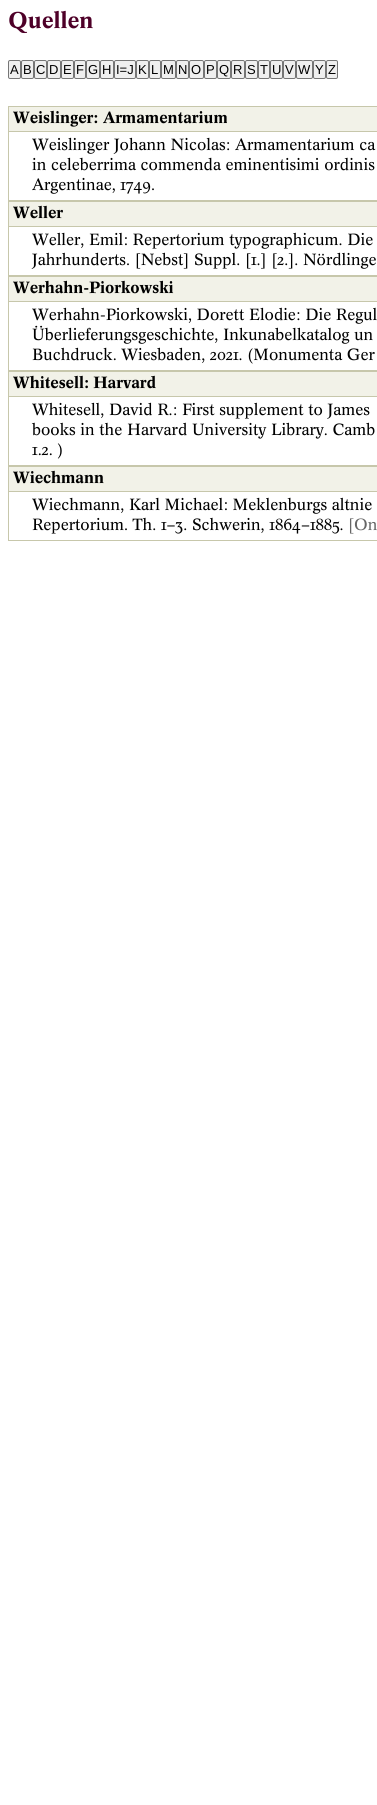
#include <cairo.h>
#include <math.h>
#include <stddef.h>

typedef struct { double x, y; const char *s; } line_t;
typedef struct { double x, y, w, h; unsigned color; } box_t;

static void ink(cairo_t *ctx, unsigned color) {
    cairo_set_source_rgb(ctx, (color >> 16) / 255.0, (color >> 8 & 255) / 255.0, (color & 255) / 255.0);
}

static void round_path(cairo_t *ctx, double x, double y, double w, double h, double r) {
    cairo_new_sub_path(ctx);
    cairo_arc(ctx, x + w - r, y + h - r, r, 0, M_PI / 2);
    cairo_arc(ctx, x + r, y + h - r, r, M_PI / 2, M_PI);
    cairo_arc(ctx, x + r, y + r, r, M_PI, 1.5 * M_PI);
    cairo_arc(ctx, x + w - r, y + r, r, 1.5 * M_PI, 2 * M_PI);
    cairo_close_path(ctx);
}

int main(void) {
    cairo_surface_t *surface = cairo_image_surface_create(CAIRO_FORMAT_RGB24, 377, 1805);
    cairo_t *ctx = cairo_create(surface);
    cairo_font_options_t *options = cairo_font_options_create();
    cairo_font_options_set_hint_metrics(options, CAIRO_HINT_METRICS_OFF);
    cairo_font_options_set_hint_style(options, CAIRO_HINT_STYLE_NONE);
    cairo_set_font_options(ctx, options);
    cairo_set_miter_limit(ctx, 4);
    ink(ctx, 0xFFFFFF);
    cairo_paint(ctx);
    cairo_select_font_face(ctx, "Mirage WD", CAIRO_FONT_SLANT_NORMAL, CAIRO_FONT_WEIGHT_BOLD);
    cairo_set_font_size(ctx, 22.5);
    ink(ctx, 0x4E0028);
    cairo_move_to(ctx, 8, 28);
    cairo_show_text(ctx, "Quellen");
    ink(ctx, 0xEFEFEF);
    round_path(ctx, 8.5, 60.5, 12, 18, 1.5);
    cairo_fill_preserve(ctx);
    ink(ctx, 0x767676);
    cairo_set_line_width(ctx, 1);
    cairo_stroke(ctx);
    cairo_select_font_face(ctx, "Liberation Sans", CAIRO_FONT_SLANT_NORMAL, CAIRO_FONT_WEIGHT_NORMAL);
    cairo_set_font_size(ctx, 13);
    ink(ctx, 0x000000);
    cairo_move_to(ctx, 10, 74);
    cairo_show_text(ctx, "A");
    ink(ctx, 0xEFEFEF);
    round_path(ctx, 21.5, 60.5, 12, 18, 1.5);
    cairo_fill_preserve(ctx);
    ink(ctx, 0x767676);
    cairo_stroke(ctx);
    ink(ctx, 0x000000);
    cairo_move_to(ctx, 23, 74);
    cairo_show_text(ctx, "B");
    ink(ctx, 0xEFEFEF);
    round_path(ctx, 34.5, 60.5, 12, 18, 1.5);
    cairo_fill_preserve(ctx);
    ink(ctx, 0x767676);
    cairo_stroke(ctx);
    ink(ctx, 0x000000);
    cairo_move_to(ctx, 36, 74);
    cairo_show_text(ctx, "C");
    ink(ctx, 0xEFEFEF);
    round_path(ctx, 47.5, 60.5, 13, 18, 1.5);
    cairo_fill_preserve(ctx);
    ink(ctx, 0x767676);
    cairo_stroke(ctx);
    ink(ctx, 0x000000);
    cairo_move_to(ctx, 49, 74);
    cairo_show_text(ctx, "D");
    ink(ctx, 0xEFEFEF);
    round_path(ctx, 61.5, 60.5, 12, 18, 1.5);
    cairo_fill_preserve(ctx);
    ink(ctx, 0x767676);
    cairo_stroke(ctx);
    ink(ctx, 0x000000);
    cairo_move_to(ctx, 63, 74);
    cairo_show_text(ctx, "E");
    ink(ctx, 0xEFEFEF);
    round_path(ctx, 74.5, 60.5, 11, 18, 1.5);
    cairo_fill_preserve(ctx);
    ink(ctx, 0x767676);
    cairo_stroke(ctx);
    ink(ctx, 0x000000);
    cairo_move_to(ctx, 76, 74);
    cairo_show_text(ctx, "F");
    ink(ctx, 0xEFEFEF);
    round_path(ctx, 86.5, 60.5, 13, 18, 1.5);
    cairo_fill_preserve(ctx);
    ink(ctx, 0x767676);
    cairo_stroke(ctx);
    ink(ctx, 0x000000);
    cairo_move_to(ctx, 88, 74);
    cairo_show_text(ctx, "G");
    ink(ctx, 0xEFEFEF);
    round_path(ctx, 100.5, 60.5, 13, 18, 1.5);
    cairo_fill_preserve(ctx);
    ink(ctx, 0x767676);
    cairo_stroke(ctx);
    ink(ctx, 0x000000);
    cairo_move_to(ctx, 102, 74);
    cairo_show_text(ctx, "H");
    ink(ctx, 0xEFEFEF);
    round_path(ctx, 114.5, 60.5, 21, 18, 1.5);
    cairo_fill_preserve(ctx);
    ink(ctx, 0x767676);
    cairo_stroke(ctx);
    ink(ctx, 0x000000);
    cairo_move_to(ctx, 116, 74);
    cairo_show_text(ctx, "I=J");
    ink(ctx, 0xEFEFEF);
    round_path(ctx, 136.5, 60.5, 12, 18, 1.5);
    cairo_fill_preserve(ctx);
    ink(ctx, 0x767676);
    cairo_stroke(ctx);
    ink(ctx, 0x000000);
    cairo_move_to(ctx, 138, 74);
    cairo_show_text(ctx, "K");
    ink(ctx, 0xEFEFEF);
    round_path(ctx, 149.5, 60.5, 11, 18, 1.5);
    cairo_fill_preserve(ctx);
    ink(ctx, 0x767676);
    cairo_stroke(ctx);
    ink(ctx, 0x000000);
    cairo_move_to(ctx, 151, 74);
    cairo_show_text(ctx, "L");
    ink(ctx, 0xEFEFEF);
    round_path(ctx, 161.5, 60.5, 14, 18, 1.5);
    cairo_fill_preserve(ctx);
    ink(ctx, 0x767676);
    cairo_stroke(ctx);
    ink(ctx, 0x000000);
    cairo_move_to(ctx, 163, 74);
    cairo_show_text(ctx, "M");
    ink(ctx, 0xEFEFEF);
    round_path(ctx, 176.5, 60.5, 12, 18, 1.5);
    cairo_fill_preserve(ctx);
    ink(ctx, 0x767676);
    cairo_stroke(ctx);
    ink(ctx, 0x000000);
    cairo_move_to(ctx, 178, 74);
    cairo_show_text(ctx, "N");
    ink(ctx, 0xEFEFEF);
    round_path(ctx, 189.5, 60.5, 14, 18, 1.5);
    cairo_fill_preserve(ctx);
    ink(ctx, 0x767676);
    cairo_stroke(ctx);
    ink(ctx, 0x000000);
    cairo_move_to(ctx, 191, 74);
    cairo_show_text(ctx, "O");
    ink(ctx, 0xEFEFEF);
    round_path(ctx, 204.5, 60.5, 12, 18, 1.5);
    cairo_fill_preserve(ctx);
    ink(ctx, 0x767676);
    cairo_stroke(ctx);
    ink(ctx, 0x000000);
    cairo_move_to(ctx, 206, 74);
    cairo_show_text(ctx, "P");
    ink(ctx, 0xEFEFEF);
    round_path(ctx, 217.5, 60.5, 13, 18, 1.5);
    cairo_fill_preserve(ctx);
    ink(ctx, 0x767676);
    cairo_stroke(ctx);
    ink(ctx, 0x000000);
    cairo_move_to(ctx, 219, 74);
    cairo_show_text(ctx, "Q");
    ink(ctx, 0xEFEFEF);
    round_path(ctx, 231.5, 60.5, 13, 18, 1.5);
    cairo_fill_preserve(ctx);
    ink(ctx, 0x767676);
    cairo_stroke(ctx);
    ink(ctx, 0x000000);
    cairo_move_to(ctx, 233, 74);
    cairo_show_text(ctx, "R");
    ink(ctx, 0xEFEFEF);
    round_path(ctx, 245.5, 60.5, 12, 18, 1.5);
    cairo_fill_preserve(ctx);
    ink(ctx, 0x767676);
    cairo_stroke(ctx);
    ink(ctx, 0x000000);
    cairo_move_to(ctx, 247, 74);
    cairo_show_text(ctx, "S");
    ink(ctx, 0xEFEFEF);
    round_path(ctx, 258.5, 60.5, 11, 18, 1.5);
    cairo_fill_preserve(ctx);
    ink(ctx, 0x767676);
    cairo_stroke(ctx);
    ink(ctx, 0x000000);
    cairo_move_to(ctx, 260, 74);
    cairo_show_text(ctx, "T");
    ink(ctx, 0xEFEFEF);
    round_path(ctx, 270.5, 60.5, 12, 18, 1.5);
    cairo_fill_preserve(ctx);
    ink(ctx, 0x767676);
    cairo_stroke(ctx);
    ink(ctx, 0x000000);
    cairo_move_to(ctx, 272, 74);
    cairo_show_text(ctx, "U");
    ink(ctx, 0xEFEFEF);
    round_path(ctx, 283.5, 60.5, 12, 18, 1.5);
    cairo_fill_preserve(ctx);
    ink(ctx, 0x767676);
    cairo_stroke(ctx);
    ink(ctx, 0x000000);
    cairo_move_to(ctx, 285, 74);
    cairo_show_text(ctx, "V");
    ink(ctx, 0xEFEFEF);
    round_path(ctx, 296.5, 60.5, 16, 18, 1.5);
    cairo_fill_preserve(ctx);
    ink(ctx, 0x767676);
    cairo_stroke(ctx);
    ink(ctx, 0x000000);
    cairo_move_to(ctx, 298, 74);
    cairo_show_text(ctx, "W");
    ink(ctx, 0xEFEFEF);
    round_path(ctx, 313.5, 60.5, 12, 18, 1.5);
    cairo_fill_preserve(ctx);
    ink(ctx, 0x767676);
    cairo_stroke(ctx);
    ink(ctx, 0x000000);
    cairo_move_to(ctx, 315, 74);
    cairo_show_text(ctx, "Y");
    ink(ctx, 0xEFEFEF);
    round_path(ctx, 326.5, 60.5, 11, 18, 1.5);
    cairo_fill_preserve(ctx);
    ink(ctx, 0x767676);
    cairo_stroke(ctx);
    ink(ctx, 0x000000);
    cairo_move_to(ctx, 328, 74);
    cairo_show_text(ctx, "Z");
    {
        static const box_t items[] = {
            {8, 106, 369, 1, 0xC7C7AB},
            {8, 106, 1, 95, 0xC7C7AB},
            {9, 107, 368, 24, 0xF2F2E8},
            {9, 131, 368, 1, 0xC7C7AB},
        };
        for (size_t i = 0; i < sizeof items / sizeof *items; i++) {
            ink(ctx, items[i].color);
            cairo_rectangle(ctx, items[i].x, items[i].y, items[i].w, items[i].h);
            cairo_fill(ctx);
        }
    }
    cairo_select_font_face(ctx, "Mirage WD", CAIRO_FONT_SLANT_NORMAL, CAIRO_FONT_WEIGHT_BOLD);
    cairo_set_font_size(ctx, 16);
    ink(ctx, 0x000000);
    cairo_move_to(ctx, 13, 123);
    cairo_show_text(ctx, "Weislinger: Armamentarium");
    ink(ctx, 0xC7C7AB);
    cairo_rectangle(ctx, 9, 200, 368, 1);
    cairo_fill(ctx);
    cairo_select_font_face(ctx, "Mirage WD", CAIRO_FONT_SLANT_NORMAL, CAIRO_FONT_WEIGHT_NORMAL);
    ink(ctx, 0x000000);
    {
        static const line_t items[] = {
            {32, 150, "Weislinger Johann Nicolas: Armamentarium ca"},
            {32, 170, "in celeberrima commenda eminentisimi ordinis"},
            {32, 190, "Argentinae, 1749."},
        };
        for (size_t i = 0; i < sizeof items / sizeof *items; i++) {
            cairo_move_to(ctx, items[i].x, items[i].y);
            cairo_show_text(ctx, items[i].s);
        }
    }
    {
        static const box_t items[] = {
            {8, 201, 369, 1, 0xC7C7AB},
            {8, 201, 1, 75, 0xC7C7AB},
            {9, 202, 368, 24, 0xF2F2E8},
            {9, 226, 368, 1, 0xC7C7AB},
        };
        for (size_t i = 0; i < sizeof items / sizeof *items; i++) {
            ink(ctx, items[i].color);
            cairo_rectangle(ctx, items[i].x, items[i].y, items[i].w, items[i].h);
            cairo_fill(ctx);
        }
    }
    cairo_select_font_face(ctx, "Mirage WD", CAIRO_FONT_SLANT_NORMAL, CAIRO_FONT_WEIGHT_BOLD);
    ink(ctx, 0x000000);
    cairo_move_to(ctx, 13, 218);
    cairo_show_text(ctx, "Weller");
    ink(ctx, 0xC7C7AB);
    cairo_rectangle(ctx, 9, 275, 368, 1);
    cairo_fill(ctx);
    cairo_select_font_face(ctx, "Mirage WD", CAIRO_FONT_SLANT_NORMAL, CAIRO_FONT_WEIGHT_NORMAL);
    ink(ctx, 0x000000);
    cairo_move_to(ctx, 32, 245);
    cairo_show_text(ctx, "Weller, Emil: Repertorium typographicum. Die");
    cairo_move_to(ctx, 32, 265);
    cairo_show_text(ctx, "Jahrhunderts. [Nebst] Suppl. [1.] [2.]. Nördlinge");
    {
        static const box_t items[] = {
            {8, 276, 369, 1, 0xC7C7AB},
            {8, 276, 1, 95, 0xC7C7AB},
            {9, 277, 368, 24, 0xF2F2E8},
            {9, 301, 368, 1, 0xC7C7AB},
        };
        for (size_t i = 0; i < sizeof items / sizeof *items; i++) {
            ink(ctx, items[i].color);
            cairo_rectangle(ctx, items[i].x, items[i].y, items[i].w, items[i].h);
            cairo_fill(ctx);
        }
    }
    cairo_select_font_face(ctx, "Mirage WD", CAIRO_FONT_SLANT_NORMAL, CAIRO_FONT_WEIGHT_BOLD);
    ink(ctx, 0x000000);
    cairo_move_to(ctx, 13, 293);
    cairo_show_text(ctx, "Werhahn-Piorkowski");
    ink(ctx, 0xC7C7AB);
    cairo_rectangle(ctx, 9, 370, 368, 1);
    cairo_fill(ctx);
    cairo_select_font_face(ctx, "Mirage WD", CAIRO_FONT_SLANT_NORMAL, CAIRO_FONT_WEIGHT_NORMAL);
    ink(ctx, 0x000000);
    {
        static const line_t items[] = {
            {32, 320, "Werhahn-Piorkowski, Dorett Elodie: Die Regul"},
            {32, 340, "Überlieferungsgeschichte, Inkunabelkatalog un"},
            {32, 360, "Buchdruck. Wiesbaden, 2021. (Monumenta Ger"},
        };
        for (size_t i = 0; i < sizeof items / sizeof *items; i++) {
            cairo_move_to(ctx, items[i].x, items[i].y);
            cairo_show_text(ctx, items[i].s);
        }
    }
    {
        static const box_t items[] = {
            {8, 371, 369, 1, 0xC7C7AB},
            {8, 371, 1, 95, 0xC7C7AB},
            {9, 372, 368, 24, 0xF2F2E8},
            {9, 396, 368, 1, 0xC7C7AB},
        };
        for (size_t i = 0; i < sizeof items / sizeof *items; i++) {
            ink(ctx, items[i].color);
            cairo_rectangle(ctx, items[i].x, items[i].y, items[i].w, items[i].h);
            cairo_fill(ctx);
        }
    }
    cairo_select_font_face(ctx, "Mirage WD", CAIRO_FONT_SLANT_NORMAL, CAIRO_FONT_WEIGHT_BOLD);
    ink(ctx, 0x000000);
    cairo_move_to(ctx, 13, 388);
    cairo_show_text(ctx, "Whitesell: Harvard");
    ink(ctx, 0xC7C7AB);
    cairo_rectangle(ctx, 9, 465, 368, 1);
    cairo_fill(ctx);
    cairo_select_font_face(ctx, "Mirage WD", CAIRO_FONT_SLANT_NORMAL, CAIRO_FONT_WEIGHT_NORMAL);
    ink(ctx, 0x000000);
    {
        static const line_t items[] = {
            {32, 415, "Whitesell, David R.: First supplement to James"},
            {32, 435, "books in the Harvard University Library. Camb"},
            {32, 455, "1.2. )"},
        };
        for (size_t i = 0; i < sizeof items / sizeof *items; i++) {
            cairo_move_to(ctx, items[i].x, items[i].y);
            cairo_show_text(ctx, items[i].s);
        }
    }
    {
        static const box_t items[] = {
            {8, 466, 369, 1, 0xC7C7AB},
            {8, 466, 1, 75, 0xC7C7AB},
            {9, 467, 368, 24, 0xF2F2E8},
            {9, 491, 368, 1, 0xC7C7AB},
        };
        for (size_t i = 0; i < sizeof items / sizeof *items; i++) {
            ink(ctx, items[i].color);
            cairo_rectangle(ctx, items[i].x, items[i].y, items[i].w, items[i].h);
            cairo_fill(ctx);
        }
    }
    cairo_select_font_face(ctx, "Mirage WD", CAIRO_FONT_SLANT_NORMAL, CAIRO_FONT_WEIGHT_BOLD);
    ink(ctx, 0x000000);
    cairo_move_to(ctx, 13, 483);
    cairo_show_text(ctx, "Wiechmann");
    ink(ctx, 0xC7C7AB);
    cairo_rectangle(ctx, 9, 540, 368, 1);
    cairo_fill(ctx);
    cairo_select_font_face(ctx, "Mirage WD", CAIRO_FONT_SLANT_NORMAL, CAIRO_FONT_WEIGHT_NORMAL);
    ink(ctx, 0x000000);
    cairo_move_to(ctx, 32, 510);
    cairo_show_text(ctx, "Wiechmann, Karl Michael: Meklenburgs altnie");
    cairo_move_to(ctx, 32, 530);
    cairo_show_text(ctx, "Repertorium. Th. 1–3. Schwerin, 1864–1885.");
    ink(ctx, 0x666666);
    cairo_move_to(ctx, 348, 530);
    cairo_show_text(ctx, "[On");
    cairo_surface_write_to_png(surface, "image.png");
    cairo_font_options_destroy(options);
    cairo_destroy(ctx);
    cairo_surface_destroy(surface);
    return 0;
}
